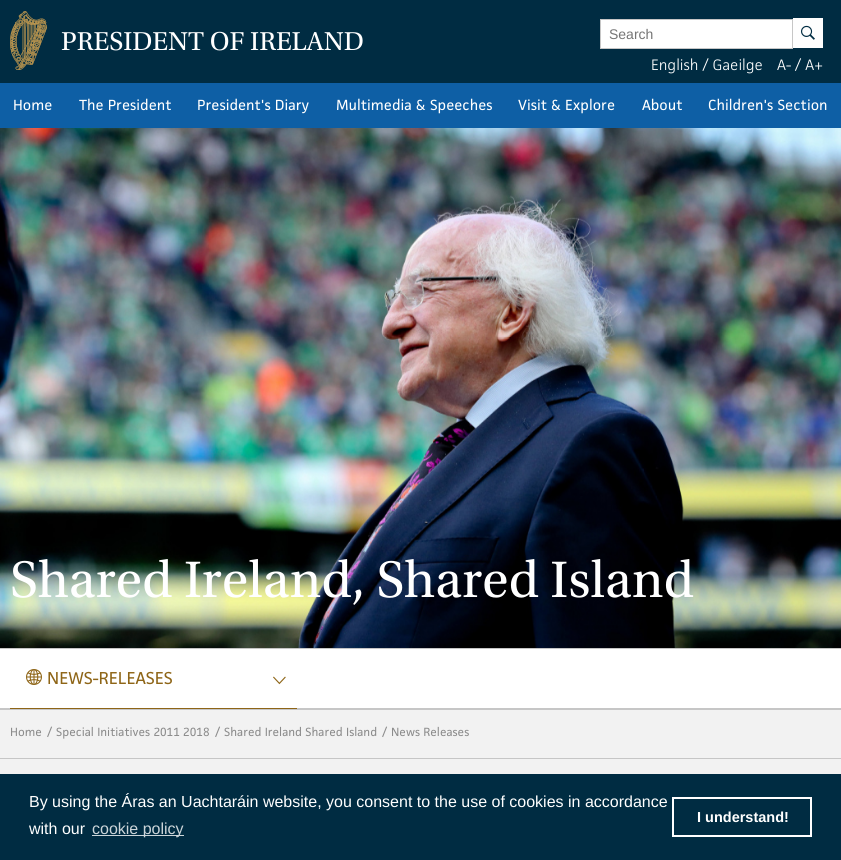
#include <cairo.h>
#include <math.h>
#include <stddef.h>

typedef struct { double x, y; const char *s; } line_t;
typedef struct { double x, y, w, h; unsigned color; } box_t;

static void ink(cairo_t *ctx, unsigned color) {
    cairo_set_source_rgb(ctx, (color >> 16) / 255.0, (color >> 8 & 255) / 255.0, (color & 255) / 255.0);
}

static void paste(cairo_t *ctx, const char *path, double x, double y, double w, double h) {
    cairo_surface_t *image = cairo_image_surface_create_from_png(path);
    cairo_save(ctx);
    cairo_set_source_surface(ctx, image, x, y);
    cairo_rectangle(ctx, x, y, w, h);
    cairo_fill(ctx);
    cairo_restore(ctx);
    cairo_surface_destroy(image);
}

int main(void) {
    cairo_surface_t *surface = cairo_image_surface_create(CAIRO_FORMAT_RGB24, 841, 860);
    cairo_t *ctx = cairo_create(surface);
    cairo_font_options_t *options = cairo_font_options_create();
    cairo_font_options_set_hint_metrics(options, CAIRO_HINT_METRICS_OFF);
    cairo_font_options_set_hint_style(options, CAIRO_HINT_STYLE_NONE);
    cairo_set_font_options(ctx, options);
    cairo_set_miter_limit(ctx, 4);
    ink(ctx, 0xFFFFFF);
    cairo_paint(ctx);
    ink(ctx, 0x002C42);
    cairo_rectangle(ctx, 0, 0, 841, 83);
    cairo_fill(ctx);
    paste(ctx, "media/1.png", 10, 11, 37, 59);
    cairo_select_font_face(ctx, "Utopia", CAIRO_FONT_SLANT_NORMAL, CAIRO_FONT_WEIGHT_NORMAL);
    cairo_set_font_size(ctx, 27.25);
    ink(ctx, 0xFFFFFF);
    cairo_move_to(ctx, 61, 50);
    cairo_show_text(ctx, "PRESIDENT OF IRELAND");
    cairo_rectangle(ctx, 600.5, 19.5, 192, 29);
    cairo_fill_preserve(ctx);
    ink(ctx, 0xC6C6C6);
    cairo_set_line_width(ctx, 1);
    cairo_stroke(ctx);
    cairo_select_font_face(ctx, "Liberation Sans", CAIRO_FONT_SLANT_NORMAL, CAIRO_FONT_WEIGHT_NORMAL);
    cairo_set_font_size(ctx, 14);
    ink(ctx, 0x757575);
    cairo_move_to(ctx, 609, 39);
    cairo_show_text(ctx, "Search");
    ink(ctx, 0xFEFEFE);
    cairo_rectangle(ctx, 793, 18, 30, 30);
    cairo_fill(ctx);
    paste(ctx, "media/2.png", 801, 25, 14, 15);
    cairo_select_font_face(ctx, "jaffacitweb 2", CAIRO_FONT_SLANT_NORMAL, CAIRO_FONT_WEIGHT_NORMAL);
    ink(ctx, 0xFFFFFF);
    cairo_move_to(ctx, 651, 70);
    cairo_show_text(ctx, "English / Gaeilge");
    cairo_move_to(ctx, 777, 70);
    cairo_show_text(ctx, "A- / A+");
    ink(ctx, 0x0E5FA5);
    cairo_rectangle(ctx, 0, 83, 841, 45);
    cairo_fill(ctx);
    cairo_select_font_face(ctx, "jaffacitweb", CAIRO_FONT_SLANT_NORMAL, CAIRO_FONT_WEIGHT_NORMAL);
    cairo_set_font_size(ctx, 13.6);
    ink(ctx, 0xFFFFFF);
    {
        static const line_t items[] = {
            {13, 110, "Home"},
            {79, 110, "The President"},
            {197, 110, "President's Diary"},
            {336, 110, "Multimedia & Speeches"},
            {518, 110, "Visit & Explore"},
            {642, 110, "About"},
            {708, 110, "Children's Section"},
        };
        for (size_t i = 0; i < sizeof items / sizeof *items; i++) {
            cairo_move_to(ctx, items[i].x, items[i].y);
            cairo_show_text(ctx, items[i].s);
        }
    }
    paste(ctx, "media/3.png", 0, 128, 841, 520);
    cairo_select_font_face(ctx, "Utopia", CAIRO_FONT_SLANT_NORMAL, CAIRO_FONT_WEIGHT_NORMAL);
    cairo_set_font_size(ctx, 54);
    cairo_move_to(ctx, 10, 597);
    cairo_show_text(ctx, "Shared Ireland, Shared Island");
    ink(ctx, 0xC6C6C6);
    cairo_rectangle(ctx, 0, 648, 841, 1);
    cairo_fill(ctx);
    cairo_rectangle(ctx, 0, 708, 841, 2);
    cairo_fill(ctx);
    paste(ctx, "media/4.png", 26, 669, 16, 16);
    cairo_select_font_face(ctx, "jaffacitweb", CAIRO_FONT_SLANT_NORMAL, CAIRO_FONT_WEIGHT_NORMAL);
    cairo_set_font_size(ctx, 16);
    ink(ctx, 0x8E6517);
    cairo_move_to(ctx, 47, 684);
    cairo_show_text(ctx, "NEWS-RELEASES");
    paste(ctx, "media/5.png", 273, 676, 13, 9);
    {
        static const box_t items[] = {
            {10, 708, 287, 1, 0x8E6517},
            {0, 710, 841, 64, 0xF2F2F2},
            {0, 758, 841, 1, 0xC6C6C6},
        };
        for (size_t i = 0; i < sizeof items / sizeof *items; i++) {
            ink(ctx, items[i].color);
            cairo_rectangle(ctx, items[i].x, items[i].y, items[i].w, items[i].h);
            cairo_fill(ctx);
        }
    }
    cairo_set_font_size(ctx, 11);
    ink(ctx, 0x8C8C8C);
    {
        static const line_t items[] = {
            {10, 736, "Home"},
            {47, 736, "/"},
            {56, 736, "Special Initiatives 2011 2018"},
            {215, 736, "/"},
            {224, 736, "Shared Ireland Shared Island"},
            {382, 736, "/"},
            {391, 736, "News Releases"},
        };
        for (size_t i = 0; i < sizeof items / sizeof *items; i++) {
            cairo_move_to(ctx, items[i].x, items[i].y);
            cairo_show_text(ctx, items[i].s);
        }
    }
    ink(ctx, 0x002C42);
    cairo_rectangle(ctx, 0, 774, 841, 86);
    cairo_fill(ctx);
    cairo_select_font_face(ctx, "Liberation Sans", CAIRO_FONT_SLANT_NORMAL, CAIRO_FONT_WEIGHT_NORMAL);
    cairo_set_font_size(ctx, 16);
    ink(ctx, 0xFFFFFF);
    cairo_move_to(ctx, 29, 807);
    cairo_show_text(ctx, "By using the Áras an Uachtaráin website, you consent to the use of cookies in accordance");
    cairo_move_to(ctx, 29, 834);
    cairo_show_text(ctx, "with our");
    ink(ctx, 0xCCD5D9);
    cairo_rectangle(ctx, 92, 835, 92, 1);
    cairo_fill(ctx);
    cairo_move_to(ctx, 92, 834);
    cairo_show_text(ctx, "cookie policy");
    cairo_rectangle(ctx, 673, 798, 138, 38);
    ink(ctx, 0xFFFFFF);
    cairo_set_line_width(ctx, 2);
    cairo_stroke(ctx);
    cairo_select_font_face(ctx, "Liberation Sans", CAIRO_FONT_SLANT_NORMAL, CAIRO_FONT_WEIGHT_BOLD);
    cairo_set_font_size(ctx, 14.5);
    cairo_move_to(ctx, 697, 822);
    cairo_show_text(ctx, "I understand!");
    cairo_surface_write_to_png(surface, "image.png");
    cairo_font_options_destroy(options);
    cairo_destroy(ctx);
    cairo_surface_destroy(surface);
    return 0;
}
